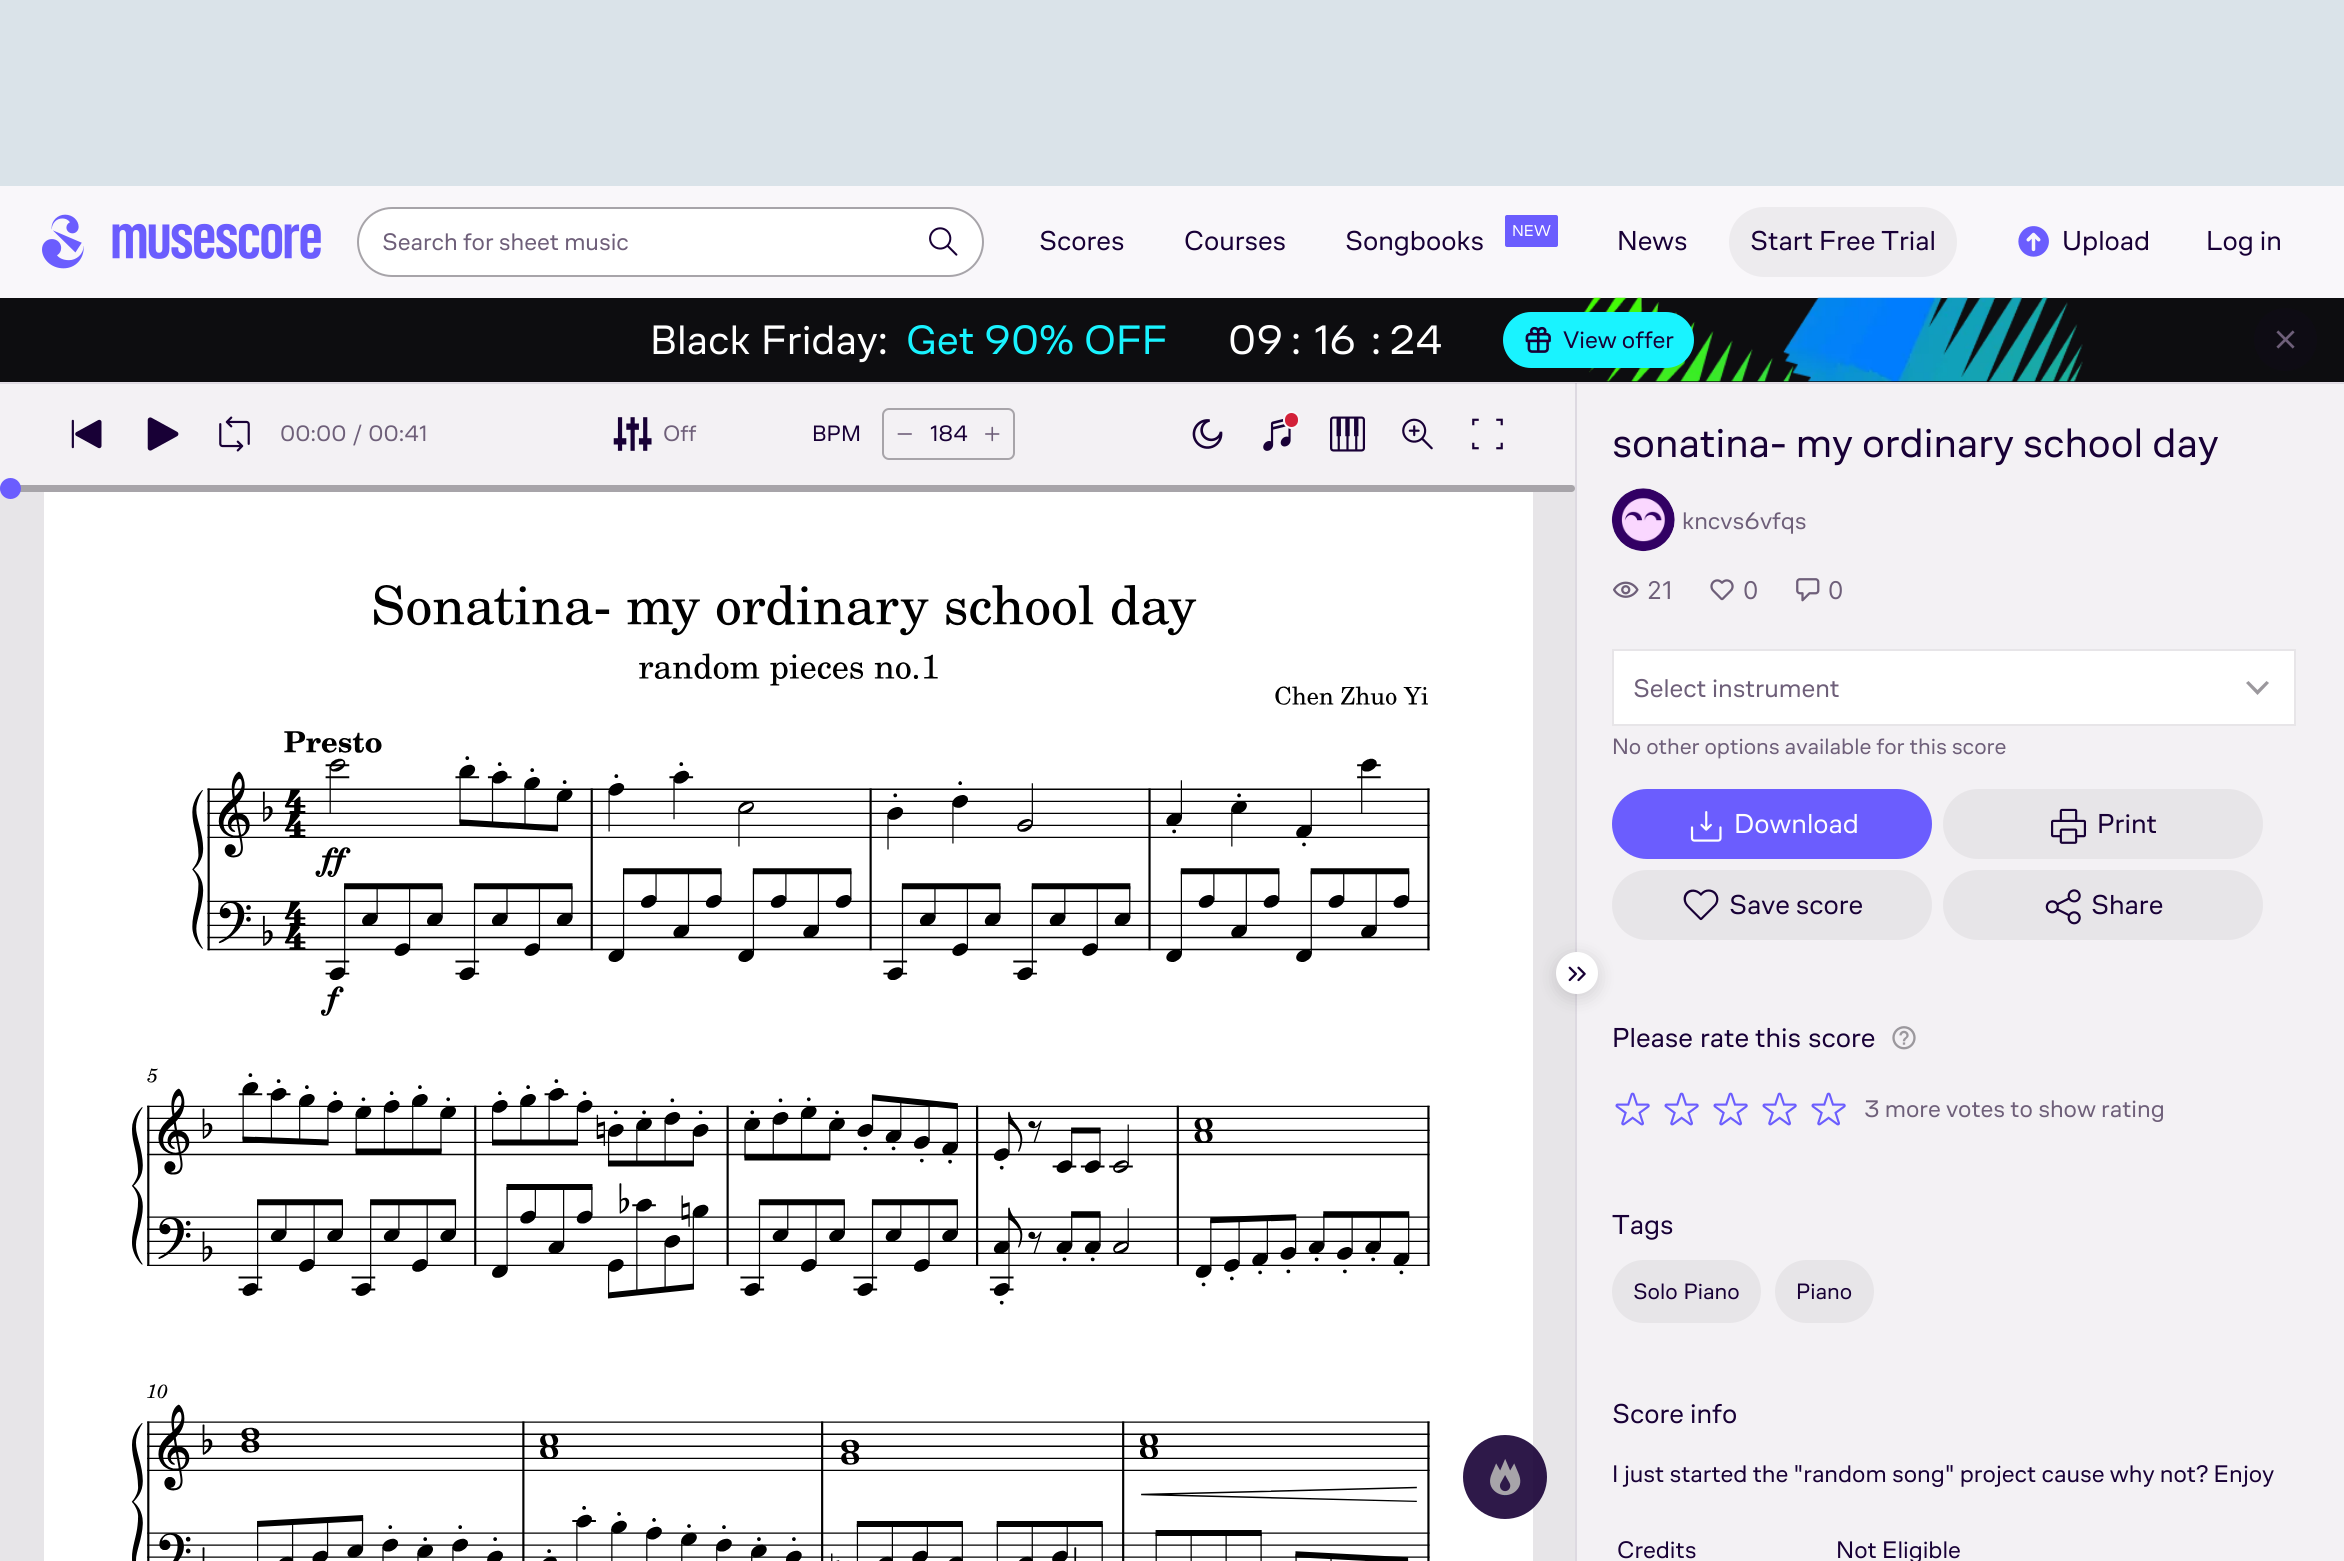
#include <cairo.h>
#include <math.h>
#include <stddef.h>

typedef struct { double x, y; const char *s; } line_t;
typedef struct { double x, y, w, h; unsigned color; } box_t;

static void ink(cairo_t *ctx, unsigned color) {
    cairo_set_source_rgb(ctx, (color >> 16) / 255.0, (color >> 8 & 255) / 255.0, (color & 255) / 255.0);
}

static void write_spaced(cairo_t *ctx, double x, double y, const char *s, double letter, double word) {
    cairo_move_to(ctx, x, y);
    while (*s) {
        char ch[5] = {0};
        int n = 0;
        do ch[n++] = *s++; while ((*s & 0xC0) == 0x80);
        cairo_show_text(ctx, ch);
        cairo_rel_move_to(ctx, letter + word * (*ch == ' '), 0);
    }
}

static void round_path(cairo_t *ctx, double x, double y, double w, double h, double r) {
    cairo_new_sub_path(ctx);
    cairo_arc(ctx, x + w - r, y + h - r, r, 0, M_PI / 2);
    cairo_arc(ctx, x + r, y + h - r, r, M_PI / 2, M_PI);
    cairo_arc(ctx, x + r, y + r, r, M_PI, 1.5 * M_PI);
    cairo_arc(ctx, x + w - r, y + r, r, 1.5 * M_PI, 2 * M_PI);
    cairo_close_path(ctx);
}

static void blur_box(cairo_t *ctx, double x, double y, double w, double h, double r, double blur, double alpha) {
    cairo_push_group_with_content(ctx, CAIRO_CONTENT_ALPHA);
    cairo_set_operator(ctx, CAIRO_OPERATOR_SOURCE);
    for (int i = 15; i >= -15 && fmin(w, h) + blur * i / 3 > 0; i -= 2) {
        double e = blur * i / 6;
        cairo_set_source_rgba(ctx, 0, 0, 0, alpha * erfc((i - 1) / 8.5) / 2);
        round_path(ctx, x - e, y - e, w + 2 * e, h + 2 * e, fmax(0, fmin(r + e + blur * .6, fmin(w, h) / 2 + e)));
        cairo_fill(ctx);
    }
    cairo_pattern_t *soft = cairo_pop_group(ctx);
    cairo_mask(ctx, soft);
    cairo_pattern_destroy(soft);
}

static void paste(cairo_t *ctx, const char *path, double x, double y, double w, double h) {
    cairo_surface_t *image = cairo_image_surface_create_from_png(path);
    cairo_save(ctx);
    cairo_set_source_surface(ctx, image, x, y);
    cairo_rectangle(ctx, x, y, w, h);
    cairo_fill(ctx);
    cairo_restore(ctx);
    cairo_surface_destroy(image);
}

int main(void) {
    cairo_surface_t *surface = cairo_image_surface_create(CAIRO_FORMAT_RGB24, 2344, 1561);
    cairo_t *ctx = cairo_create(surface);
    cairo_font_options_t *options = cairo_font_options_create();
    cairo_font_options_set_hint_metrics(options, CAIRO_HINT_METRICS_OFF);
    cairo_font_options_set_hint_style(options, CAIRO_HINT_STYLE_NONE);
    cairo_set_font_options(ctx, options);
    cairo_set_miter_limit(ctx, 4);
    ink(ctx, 0xF9F7FA);
    cairo_paint(ctx);
    ink(ctx, 0xE3DEE6);
    cairo_rectangle(ctx, 0, 382, 2344, 1);
    cairo_fill(ctx);
    ink(ctx, 0xDAE3E9);
    cairo_rectangle(ctx, 0, 0, 2344, 186);
    cairo_fill(ctx);
    paste(ctx, "media/1.png", 42, 214, 279, 55);
    ink(ctx, 0xFFFFFF);
    round_path(ctx, 358, 208, 625, 68, 34);
    cairo_fill_preserve(ctx);
    ink(ctx, 0xA7A4A9);
    cairo_stroke(ctx);
    cairo_select_font_face(ctx, "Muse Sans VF", CAIRO_FONT_SLANT_NORMAL, CAIRO_FONT_WEIGHT_NORMAL);
    cairo_set_font_size(ctx, 24.5);
    ink(ctx, 0x6E5F79);
    cairo_move_to(ctx, 382, 250);
    cairo_show_text(ctx, "Search for sheet music");
    paste(ctx, "media/2.png", 929, 227, 29, 29);
    cairo_set_font_size(ctx, 28);
    ink(ctx, 0x180036);
    {
        static const line_t items[] = {
            {1039, 250, "Scores"},
            {1184, 250, "Courses"},
            {1345, 250, "Songbooks"},
        };
        for (size_t i = 0; i < sizeof items / sizeof *items; i++) {
            cairo_move_to(ctx, items[i].x, items[i].y);
            cairo_show_text(ctx, items[i].s);
        }
    }
    ink(ctx, 0x6B5DFE);
    round_path(ctx, 1505, 215, 53, 32, 2);
    cairo_fill(ctx);
    cairo_set_font_size(ctx, 16);
    ink(ctx, 0xFFFFFF);
    cairo_move_to(ctx, 1512, 236);
    cairo_show_text(ctx, "NEW");
    cairo_set_font_size(ctx, 28);
    ink(ctx, 0x180036);
    cairo_move_to(ctx, 1617, 250);
    cairo_show_text(ctx, "News");
    ink(ctx, 0xEDEBEE);
    round_path(ctx, 1729, 207, 228, 70, 35);
    cairo_fill(ctx);
    ink(ctx, 0x180036);
    cairo_move_to(ctx, 1750, 250);
    cairo_show_text(ctx, "Start Free Trial");
    paste(ctx, "media/3.png", 2018, 226, 31, 31);
    cairo_move_to(ctx, 2062, 250);
    cairo_show_text(ctx, "Upload");
    cairo_move_to(ctx, 2206, 250);
    cairo_show_text(ctx, "Log in");
    ink(ctx, 0x0D0D10);
    cairo_rectangle(ctx, 0, 298, 2344, 84);
    cairo_fill(ctx);
    cairo_set_font_size(ctx, 42);
    ink(ctx, 0xFFFFFF);
    cairo_move_to(ctx, 650, 354);
    cairo_show_text(ctx, "Black");
    cairo_move_to(ctx, 761, 354);
    cairo_show_text(ctx, "Friday:");
    ink(ctx, 0x19F3FF);
    {
        static const line_t items[] = {
            {906, 354, "Get"},
            {984, 354, "90%"},
            {1084, 354, "OFF"},
        };
        for (size_t i = 0; i < sizeof items / sizeof *items; i++) {
            cairo_move_to(ctx, items[i].x, items[i].y);
            cairo_show_text(ctx, items[i].s);
        }
    }
    ink(ctx, 0xFFFFFF);
    {
        static const line_t items[] = {
            {1228, 354, "09"},
            {1291, 354, ":"},
            {1314, 354, "16"},
            {1371, 354, ":"},
            {1389, 354, "24"},
        };
        for (size_t i = 0; i < sizeof items / sizeof *items; i++) {
            cairo_move_to(ctx, items[i].x, items[i].y);
            cairo_show_text(ctx, items[i].s);
        }
    }
    paste(ctx, "media/4.png", 1584, 297, 499, 85);
    ink(ctx, 0x19F3FF);
    round_path(ctx, 1503, 312, 191, 56, 28);
    cairo_fill(ctx);
    paste(ctx, "media/5.png", 1525, 326, 26, 27);
    cairo_set_font_size(ctx, 24.5);
    ink(ctx, 0x180036);
    cairo_move_to(ctx, 1563, 348);
    cairo_show_text(ctx, "View offer");
    ink(ctx, 0x0E0C14);
    cairo_new_path(ctx);
    cairo_arc(ctx, 2285.5, 339.5, 31.5, 0, 2 * M_PI);
    cairo_fill(ctx);
    paste(ctx, "media/6.png", 2276, 330, 19, 19);
    ink(ctx, 0xE7E5E8);
    cairo_rectangle(ctx, 0, 485, 1575, 1076);
    cairo_fill(ctx);
    ink(ctx, 0xA7A4A9);
    round_path(ctx, 0, 485, 1575, 7, 3.5);
    cairo_fill(ctx);
    ink(ctx, 0xF3F1F4);
    cairo_rectangle(ctx, 0, 384, 1575, 101);
    cairo_fill(ctx);
    ink(ctx, 0x6B5DFE);
    cairo_arc(ctx, 10.5, 488.5, 10.5, 0, 2 * M_PI);
    cairo_fill(ctx);
    paste(ctx, "media/7.png", 71, 419, 31, 30);
    paste(ctx, "media/8.png", 147, 417, 32, 34);
    paste(ctx, "media/9.png", 219, 416, 31, 36);
    cairo_set_font_size(ctx, 22.75);
    ink(ctx, 0x6E5F79);
    cairo_move_to(ctx, 280, 441);
    cairo_show_text(ctx, "00:00 / 00:41");
    paste(ctx, "media/10.png", 613, 417, 39, 34);
    cairo_move_to(ctx, 663, 441);
    cairo_show_text(ctx, "Off");
    ink(ctx, 0x180036);
    cairo_move_to(ctx, 812, 441);
    cairo_show_text(ctx, "BPM");
    round_path(ctx, 883, 409, 131, 50, 6);
    ink(ctx, 0xA7A4A9);
    cairo_stroke(ctx);
    paste(ctx, "media/11.png", 897, 433, 15, 2);
    ink(ctx, 0x180036);
    cairo_move_to(ctx, 930, 441);
    cairo_show_text(ctx, "184");
    paste(ctx, "media/12.png", 985, 426, 15, 16);
    paste(ctx, "media/13.png", 1192, 419, 31, 30);
    paste(ctx, "media/14.png", 1263, 418, 28, 33);
    ink(ctx, 0xD32139);
    round_path(ctx, 1284, 412, 15, 16, 7.5);
    cairo_fill_preserve(ctx);
    ink(ctx, 0xF9F7FA);
    cairo_stroke(ctx);
    paste(ctx, "media/15.png", 1330, 416, 35, 36);
    paste(ctx, "media/16.png", 1402, 418, 31, 32);
    paste(ctx, "media/17.png", 1472, 418, 31, 32);
    ink(ctx, 0xFFFFFF);
    cairo_rectangle(ctx, 44, 492, 1489, 1069);
    cairo_fill(ctx);
    paste(ctx, "media/18.png", 131, 585, 1299, 976);
    cairo_set_source_rgba(ctx, 0.094, 0, 0.212, 0.9);
    cairo_arc(ctx, 1505, 1477, 42, 0, 2 * M_PI);
    cairo_fill(ctx);
    paste(ctx, "media/19.png", 1490, 1459, 31, 37);
    {
        static const box_t items[] = {
            {1577, 384, 767, 1177, 0xF3F1F4},
            {0, 383, 2344, 1, 0xDDD9E1},
            {1575, 383, 2, 1178, 0xDDD9E1},
        };
        for (size_t i = 0; i < sizeof items / sizeof *items; i++) {
            ink(ctx, items[i].color);
            cairo_rectangle(ctx, items[i].x, items[i].y, items[i].w, items[i].h);
            cairo_fill(ctx);
        }
    }
    ink(ctx, 0xE7E5E8);
    round_path(ctx, 1612, 870, 320, 70, 35);
    cairo_fill(ctx);
    ink(ctx, 0x000000);
    blur_box(ctx, 1556, 956, 42, 42, 21, 9, 0.14);
    ink(ctx, 0xFFFFFF);
    cairo_arc(ctx, 1577, 973, 21, 0, 2 * M_PI);
    cairo_fill(ctx);
    paste(ctx, "media/20.png", 1568, 966, 18, 16);
    ink(ctx, 0xC9C3D0);
    cairo_rectangle(ctx, 1575, 383, 2, 1);
    cairo_fill(ctx);
    cairo_set_font_size(ctx, 42);
    ink(ctx, 0x180036);
    cairo_move_to(ctx, 1612, 457);
    cairo_show_text(ctx, "sonatina- my ordinary school day");
    paste(ctx, "media/21.png", 1611, 488, 64, 64);
    cairo_set_font_size(ctx, 24.5);
    ink(ctx, 0x6E5F79);
    cairo_move_to(ctx, 1682, 529);
    cairo_show_text(ctx, "kncvs6vfqs");
    paste(ctx, "media/22.png", 1613, 581, 26, 17);
    cairo_select_font_face(ctx, "Inter", CAIRO_FONT_SLANT_NORMAL, CAIRO_FONT_WEIGHT_NORMAL);
    cairo_move_to(ctx, 1647, 599);
    cairo_show_text(ctx, "21");
    paste(ctx, "media/23.png", 1710, 579, 24, 22);
    cairo_move_to(ctx, 1743, 599);
    cairo_show_text(ctx, "0");
    paste(ctx, "media/24.png", 1796, 578, 24, 24);
    cairo_move_to(ctx, 1828, 599);
    cairo_show_text(ctx, "0");
    ink(ctx, 0xFFFFFF);
    cairo_rectangle(ctx, 1613, 650, 682, 75);
    cairo_fill_preserve(ctx);
    ink(ctx, 0xE7E5E8);
    cairo_stroke(ctx);
    cairo_select_font_face(ctx, "Muse Sans VF", CAIRO_FONT_SLANT_NORMAL, CAIRO_FONT_WEIGHT_NORMAL);
    cairo_set_font_size(ctx, 26.25);
    ink(ctx, 0x6E5F79);
    cairo_move_to(ctx, 1633, 697);
    cairo_show_text(ctx, "Select instrument");
    ink(ctx, 0x9B989D);
    cairo_set_fill_rule(ctx, CAIRO_FILL_RULE_EVEN_ODD);
    cairo_new_path(ctx);
    cairo_move_to(ctx, 2269, 683);
    cairo_line_to(ctx, 2257.5, 695);
    cairo_line_to(ctx, 2246, 683);
    cairo_line_to(ctx, 2248.5, 681);
    cairo_line_to(ctx, 2257.5, 690);
    cairo_line_to(ctx, 2266.5, 681);
    cairo_close_path(ctx);
    cairo_fill(ctx);
    cairo_set_font_size(ctx, 22.75);
    ink(ctx, 0x6E5F79);
    cairo_move_to(ctx, 1612, 754);
    cairo_show_text(ctx, "No other options available for this score");
    ink(ctx, 0x6B5DFE);
    round_path(ctx, 1612, 789, 320, 70, 35);
    cairo_fill(ctx);
    paste(ctx, "media/25.png", 1690, 811, 32, 31);
    cairo_set_font_size(ctx, 28);
    ink(ctx, 0xFFFFFF);
    cairo_move_to(ctx, 1734, 833);
    cairo_show_text(ctx, "Download");
    ink(ctx, 0xE7E5E8);
    round_path(ctx, 1943, 789, 320, 70, 35);
    cairo_fill(ctx);
    paste(ctx, "media/26.png", 2051, 808, 35, 36);
    ink(ctx, 0x180036);
    cairo_move_to(ctx, 2097, 833);
    cairo_show_text(ctx, "Print");
    paste(ctx, "media/27.png", 1683, 889, 36, 32);
    cairo_move_to(ctx, 1729, 914);
    cairo_show_text(ctx, "Save score");
    ink(ctx, 0xE7E5E8);
    round_path(ctx, 1943, 870, 320, 70, 35);
    cairo_fill(ctx);
    paste(ctx, "media/28.png", 2045, 889, 36, 36);
    ink(ctx, 0x180036);
    {
        static const line_t items[] = {
            {2091, 914, "Share"},
            {1612, 1047, "Please"},
            {1700, 1047, "rate"},
            {1755, 1047, "this"},
            {1808, 1047, "score"},
        };
        for (size_t i = 0; i < sizeof items / sizeof *items; i++) {
            cairo_move_to(ctx, items[i].x, items[i].y);
            cairo_show_text(ctx, items[i].s);
        }
    }
    paste(ctx, "media/29.png", 1892, 1026, 24, 24);
    paste(ctx, "media/30.png", 1615, 1092, 35, 34);
    paste(ctx, "media/30.png", 1664, 1092, 35, 34);
    paste(ctx, "media/30.png", 1713, 1092, 35, 34);
    paste(ctx, "media/30.png", 1762, 1092, 35, 34);
    paste(ctx, "media/30.png", 1811, 1092, 35, 34);
    cairo_set_font_size(ctx, 24.5);
    ink(ctx, 0x6E5F79);
    cairo_move_to(ctx, 1864, 1117);
    cairo_show_text(ctx, "3 more votes to show rating");
    cairo_set_font_size(ctx, 28);
    ink(ctx, 0x180036);
    cairo_move_to(ctx, 1612, 1234);
    cairo_show_text(ctx, "Tags");
    ink(ctx, 0xE7E5E8);
    round_path(ctx, 1612, 1260, 149, 63, 31.5);
    cairo_fill(ctx);
    cairo_set_font_size(ctx, 22.75);
    ink(ctx, 0x180036);
    write_spaced(ctx, 1633, 1299, "Solo Piano", 0, 1);
    ink(ctx, 0xE7E5E8);
    round_path(ctx, 1775, 1260, 99, 63, 31.5);
    cairo_fill(ctx);
    ink(ctx, 0x180036);
    cairo_move_to(ctx, 1796, 1299);
    cairo_show_text(ctx, "Piano");
    cairo_set_font_size(ctx, 28);
    cairo_move_to(ctx, 1612, 1423);
    cairo_show_text(ctx, "Score");
    cairo_move_to(ctx, 1690, 1423);
    cairo_show_text(ctx, "info");
    cairo_set_font_size(ctx, 24.5);
    {
        static const line_t items[] = {
            {1612, 1482, "I just started the \"random song\" project cause why not? Enjoy"},
            {1617, 1558, "Credits"},
            {1836, 1558, "Not Eligible"},
        };
        for (size_t i = 0; i < sizeof items / sizeof *items; i++) {
            cairo_move_to(ctx, items[i].x, items[i].y);
            cairo_show_text(ctx, items[i].s);
        }
    }
    cairo_surface_write_to_png(surface, "image.png");
    cairo_font_options_destroy(options);
    cairo_destroy(ctx);
    cairo_surface_destroy(surface);
    return 0;
}
